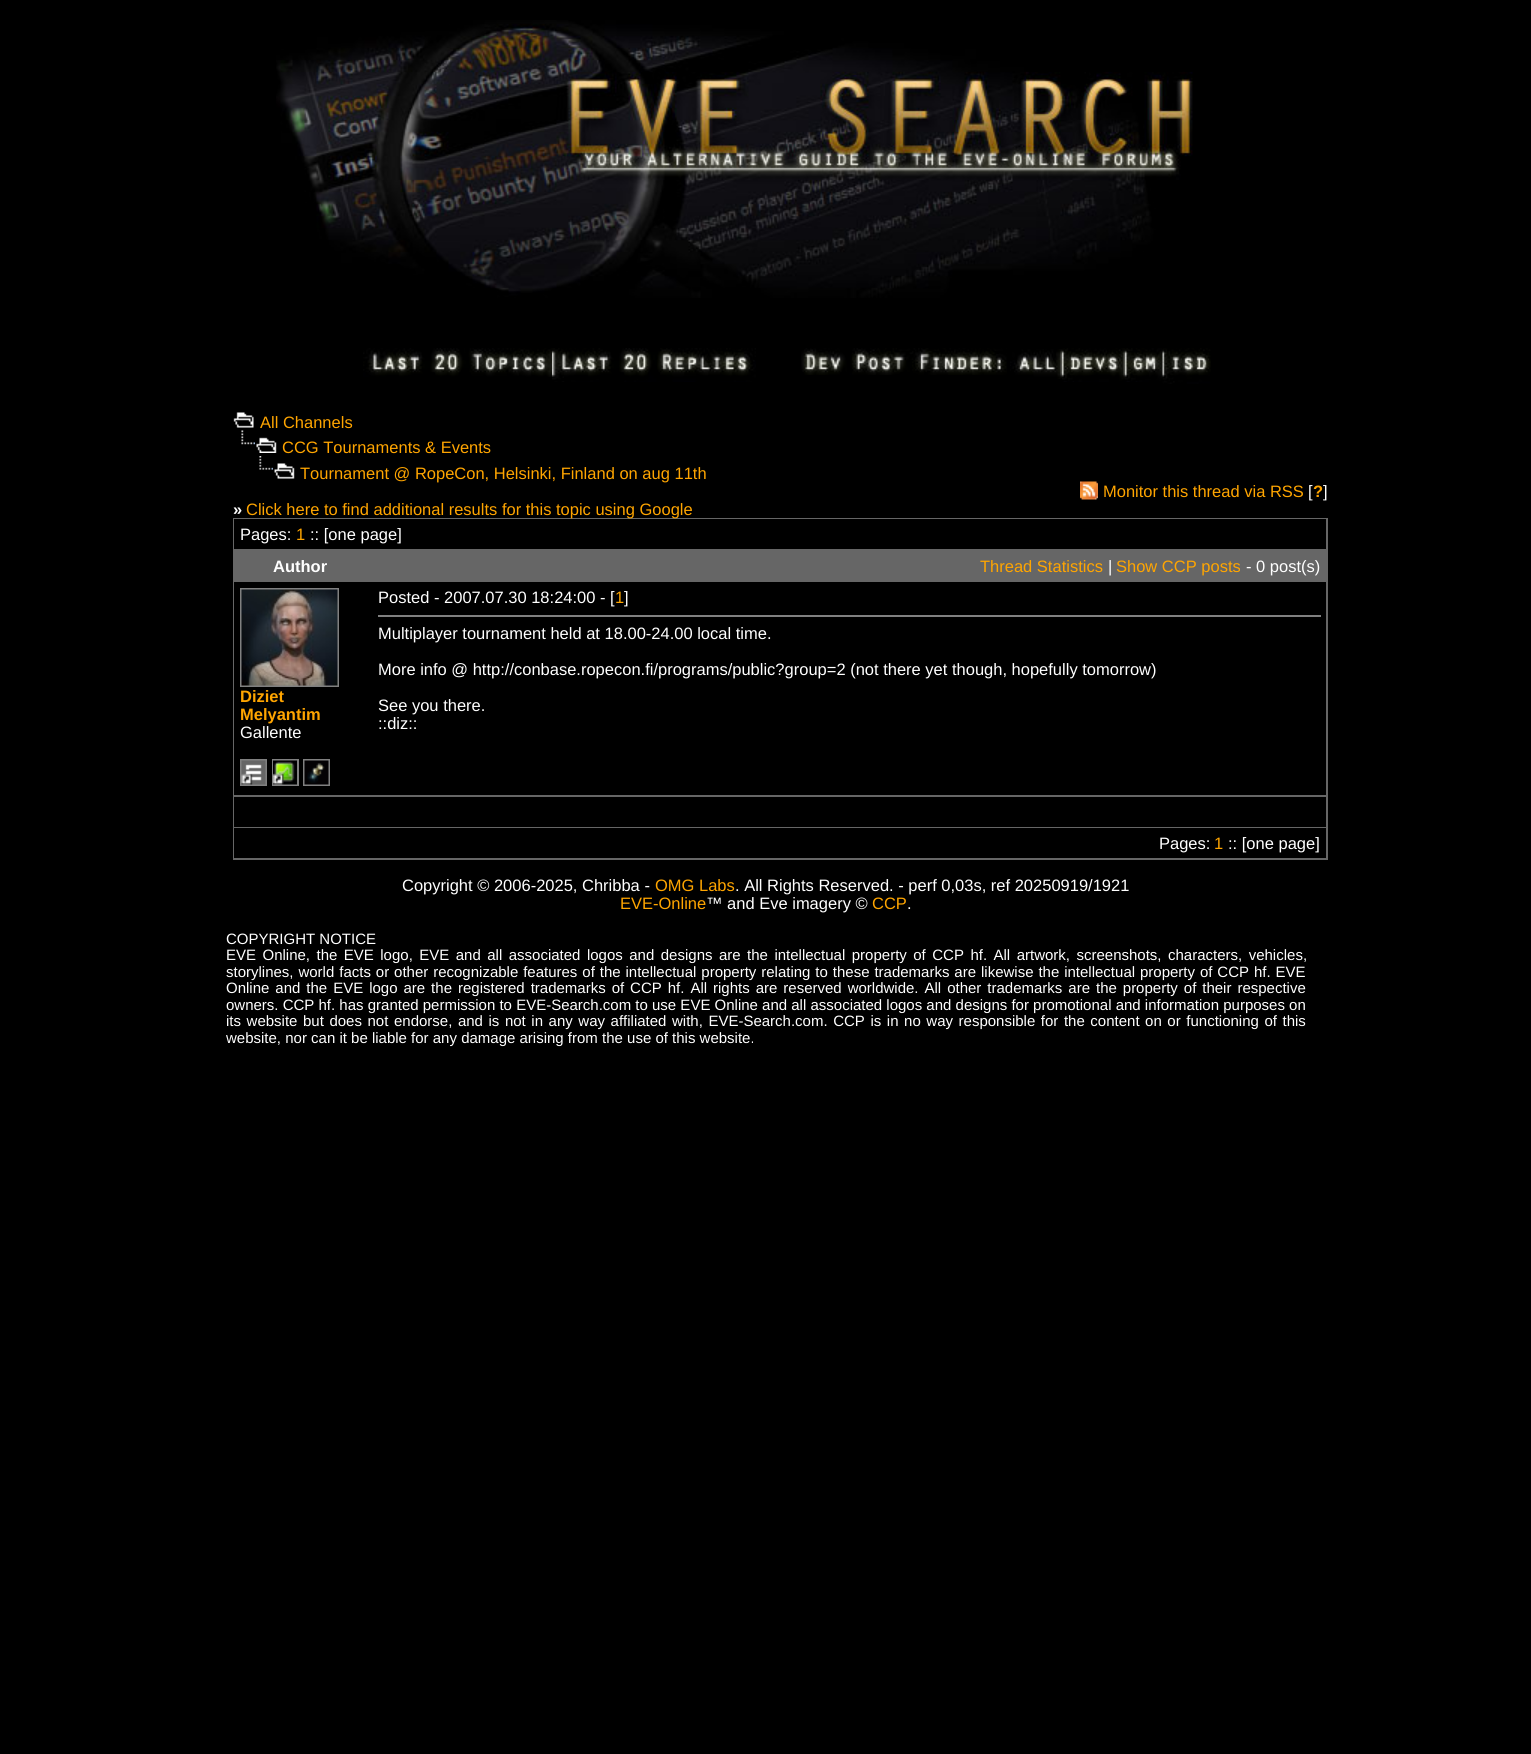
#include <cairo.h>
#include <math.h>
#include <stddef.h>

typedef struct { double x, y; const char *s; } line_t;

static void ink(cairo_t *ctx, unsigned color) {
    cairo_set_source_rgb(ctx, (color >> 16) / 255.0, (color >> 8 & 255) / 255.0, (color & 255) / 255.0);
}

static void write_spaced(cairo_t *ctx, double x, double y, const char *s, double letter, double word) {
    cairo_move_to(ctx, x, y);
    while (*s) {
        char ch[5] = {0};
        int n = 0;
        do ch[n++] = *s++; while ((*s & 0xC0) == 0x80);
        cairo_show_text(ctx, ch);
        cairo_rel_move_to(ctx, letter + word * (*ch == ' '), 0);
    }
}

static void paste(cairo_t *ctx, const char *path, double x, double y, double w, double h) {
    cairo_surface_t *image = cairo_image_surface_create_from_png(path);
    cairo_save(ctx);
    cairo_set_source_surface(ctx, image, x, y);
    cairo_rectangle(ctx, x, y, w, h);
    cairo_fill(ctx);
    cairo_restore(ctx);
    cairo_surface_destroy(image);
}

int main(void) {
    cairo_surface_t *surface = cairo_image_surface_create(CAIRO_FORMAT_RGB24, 1531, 1754);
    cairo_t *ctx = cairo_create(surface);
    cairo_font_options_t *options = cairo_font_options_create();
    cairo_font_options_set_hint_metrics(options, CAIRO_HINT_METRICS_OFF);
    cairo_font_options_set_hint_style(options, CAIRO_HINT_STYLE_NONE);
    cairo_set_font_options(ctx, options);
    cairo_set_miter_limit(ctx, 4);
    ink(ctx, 0x000000);
    cairo_paint(ctx);
    paste(ctx, "media/1.png", 276, 20, 917, 278);
    paste(ctx, "media/2.png", 363, 348, 189, 29);
    paste(ctx, "media/3.png", 552, 348, 204, 34);
    paste(ctx, "media/4.png", 801, 348, 206, 27);
    paste(ctx, "media/5.png", 1010, 349, 52, 30);
    paste(ctx, "media/6.png", 1062, 348, 63, 34);
    paste(ctx, "media/7.png", 1125, 348, 38, 34);
    paste(ctx, "media/8.png", 1162, 348, 49, 36);
    paste(ctx, "media/9.png", 233, 412, 21, 16);
    cairo_select_font_face(ctx, "Liberation Sans", CAIRO_FONT_SLANT_NORMAL, CAIRO_FONT_WEIGHT_NORMAL);
    cairo_set_font_size(ctx, 16.5);
    ink(ctx, 0xFFA500);
    cairo_move_to(ctx, 260, 428);
    cairo_show_text(ctx, "All Channels");
    paste(ctx, "media/10.png", 241, 430, 14, 15);
    paste(ctx, "media/11.png", 256, 437, 21, 16);
    cairo_move_to(ctx, 282, 453);
    cairo_show_text(ctx, "CCG Tournaments & Events");
    paste(ctx, "media/12.png", 259, 456, 14, 14);
    paste(ctx, "media/13.png", 274, 463, 21, 16);
    cairo_move_to(ctx, 300, 479);
    cairo_show_text(ctx, "Tournament @ RopeCon, Helsinki, Finland on aug 11th");
    cairo_select_font_face(ctx, "Liberation Sans", CAIRO_FONT_SLANT_NORMAL, CAIRO_FONT_WEIGHT_BOLD);
    ink(ctx, 0xFFFFFF);
    cairo_move_to(ctx, 233, 515);
    cairo_show_text(ctx, "»");
    ink(ctx, 0x666666);
    cairo_rectangle(ctx, 233, 518, 1095, 342);
    cairo_fill(ctx);
    cairo_select_font_face(ctx, "Liberation Sans", CAIRO_FONT_SLANT_NORMAL, CAIRO_FONT_WEIGHT_NORMAL);
    ink(ctx, 0xFFA500);
    cairo_move_to(ctx, 246, 515);
    cairo_show_text(ctx, "Click here to find additional results for this topic using Google");
    paste(ctx, "media/14.png", 1080, 481, 18, 19);
    cairo_move_to(ctx, 1103, 497);
    cairo_show_text(ctx, "Monitor this thread via RSS");
    ink(ctx, 0xFFFFFF);
    cairo_move_to(ctx, 1308, 497);
    cairo_show_text(ctx, "[");
    cairo_select_font_face(ctx, "Liberation Sans", CAIRO_FONT_SLANT_NORMAL, CAIRO_FONT_WEIGHT_BOLD);
    ink(ctx, 0xFFA500);
    cairo_move_to(ctx, 1313, 497);
    cairo_show_text(ctx, "?");
    cairo_select_font_face(ctx, "Liberation Sans", CAIRO_FONT_SLANT_NORMAL, CAIRO_FONT_WEIGHT_NORMAL);
    ink(ctx, 0xFFFFFF);
    cairo_move_to(ctx, 1323, 497);
    cairo_show_text(ctx, "]");
    ink(ctx, 0x000000);
    cairo_rectangle(ctx, 234, 519, 1092, 30);
    cairo_fill(ctx);
    ink(ctx, 0xFFFFFF);
    cairo_move_to(ctx, 240, 540);
    cairo_show_text(ctx, "Pages:");
    ink(ctx, 0xFFA500);
    cairo_move_to(ctx, 296, 540);
    cairo_show_text(ctx, "1");
    ink(ctx, 0xFFFFFF);
    cairo_move_to(ctx, 310, 540);
    cairo_show_text(ctx, ":: [one page]");
    cairo_select_font_face(ctx, "Liberation Sans", CAIRO_FONT_SLANT_NORMAL, CAIRO_FONT_WEIGHT_BOLD);
    cairo_move_to(ctx, 273, 572);
    cairo_show_text(ctx, "Author");
    cairo_select_font_face(ctx, "Liberation Sans", CAIRO_FONT_SLANT_NORMAL, CAIRO_FONT_WEIGHT_NORMAL);
    ink(ctx, 0xFFA500);
    cairo_move_to(ctx, 980, 572);
    cairo_show_text(ctx, "Thread Statistics");
    ink(ctx, 0xFFFFFF);
    cairo_move_to(ctx, 1108, 572);
    cairo_show_text(ctx, "|");
    ink(ctx, 0xFFA500);
    cairo_move_to(ctx, 1116, 572);
    cairo_show_text(ctx, "Show CCP posts");
    ink(ctx, 0xFFFFFF);
    cairo_move_to(ctx, 1246, 572);
    cairo_show_text(ctx, "- 0 post(s)");
    ink(ctx, 0x000000);
    cairo_rectangle(ctx, 234, 582, 1092, 213);
    cairo_fill(ctx);
    cairo_rectangle(ctx, 241, 589, 97, 97);
    ink(ctx, 0x808080);
    cairo_stroke(ctx);
    paste(ctx, "media/15.png", 241, 589, 97, 97);
    cairo_select_font_face(ctx, "Liberation Sans", CAIRO_FONT_SLANT_NORMAL, CAIRO_FONT_WEIGHT_BOLD);
    ink(ctx, 0xFFA500);
    cairo_move_to(ctx, 240, 702);
    cairo_show_text(ctx, "Diziet");
    cairo_move_to(ctx, 240, 720);
    cairo_show_text(ctx, "Melyantim");
    cairo_select_font_face(ctx, "Liberation Sans", CAIRO_FONT_SLANT_NORMAL, CAIRO_FONT_WEIGHT_NORMAL);
    ink(ctx, 0xFFFFFF);
    cairo_move_to(ctx, 240, 738);
    cairo_show_text(ctx, "Gallente");
    cairo_rectangle(ctx, 241, 760, 25, 25);
    ink(ctx, 0x808080);
    cairo_stroke(ctx);
    cairo_rectangle(ctx, 273, 760, 25, 25);
    cairo_stroke(ctx);
    cairo_rectangle(ctx, 304, 760, 25, 25);
    cairo_stroke(ctx);
    paste(ctx, "media/16.png", 241, 760, 25, 25);
    paste(ctx, "media/17.png", 273, 760, 24, 25);
    paste(ctx, "media/18.png", 304, 760, 25, 25);
    ink(ctx, 0xFFFFFF);
    cairo_move_to(ctx, 378, 603);
    cairo_show_text(ctx, "Posted - 2007.07.30 18:24:00 - [");
    ink(ctx, 0xFFA500);
    cairo_move_to(ctx, 615, 603);
    cairo_show_text(ctx, "1");
    ink(ctx, 0xFFFFFF);
    cairo_move_to(ctx, 624, 603);
    cairo_show_text(ctx, "]");
    ink(ctx, 0x808080);
    cairo_rectangle(ctx, 378, 615, 943, 2);
    cairo_fill(ctx);
    ink(ctx, 0xFFFFFF);
    {
        static const line_t items[] = {
            {378, 639, "Multiplayer tournament held at 18.00-24.00 local time."},
            {378, 675, "More info @ http://conbase.ropecon.fi/programs/public?group=2 (not there yet though, hopefully tomorrow)"},
            {378, 711, "See you there."},
            {378, 729, "::diz::"},
        };
        for (size_t i = 0; i < sizeof items / sizeof *items; i++) {
            cairo_move_to(ctx, items[i].x, items[i].y);
            cairo_show_text(ctx, items[i].s);
        }
    }
    ink(ctx, 0x000000);
    cairo_rectangle(ctx, 234, 797, 1092, 30);
    cairo_fill(ctx);
    cairo_rectangle(ctx, 234, 828, 1092, 30);
    cairo_fill(ctx);
    ink(ctx, 0xFFFFFF);
    cairo_move_to(ctx, 1159, 849);
    cairo_show_text(ctx, "Pages:");
    ink(ctx, 0xFFA500);
    cairo_move_to(ctx, 1214, 849);
    cairo_show_text(ctx, "1");
    ink(ctx, 0xFFFFFF);
    cairo_move_to(ctx, 1228, 849);
    cairo_show_text(ctx, ":: [one page]");
    cairo_move_to(ctx, 402, 891);
    cairo_show_text(ctx, "Copyright © 2006-2025, Chribba -");
    ink(ctx, 0xFFA500);
    cairo_move_to(ctx, 655, 891);
    cairo_show_text(ctx, "OMG Labs");
    ink(ctx, 0xFFFFFF);
    cairo_move_to(ctx, 735, 891);
    cairo_show_text(ctx, ". All Rights Reserved. - perf 0,03s, ref 20250919/1921");
    ink(ctx, 0xFFA500);
    cairo_move_to(ctx, 620, 909);
    cairo_show_text(ctx, "EVE-Online");
    ink(ctx, 0xFFFFFF);
    cairo_move_to(ctx, 706, 909);
    cairo_show_text(ctx, "™ and Eve imagery ©");
    ink(ctx, 0xFFA500);
    cairo_move_to(ctx, 872, 909);
    cairo_show_text(ctx, "CCP");
    ink(ctx, 0xFFFFFF);
    cairo_move_to(ctx, 907, 909);
    cairo_show_text(ctx, ".");
    cairo_set_font_size(ctx, 15);
    cairo_move_to(ctx, 226, 944);
    cairo_show_text(ctx, "COPYRIGHT NOTICE");
    write_spaced(ctx, 226, 960, "EVE Online, the EVE logo, EVE and all associated logos and designs are the intellectual property of CCP hf. All artwork, screenshots, characters, vehicles,", 0, 2.3);
    write_spaced(ctx, 226, 977, "storylines, world facts or other recognizable features of the intellectual property relating to these trademarks are likewise the intellectual property of CCP hf. EVE", 0, 0.75);
    write_spaced(ctx, 226, 993, "Online and the EVE logo are the registered trademarks of CCP hf. All rights are reserved worldwide. All other trademarks are the property of their respective", 0, 1.8);
    cairo_move_to(ctx, 226, 1010);
    cairo_show_text(ctx, "owners. CCP hf. has granted permission to EVE-Search.com to use EVE Online and all associated logos and designs for promotional and information purposes on");
    write_spaced(ctx, 226, 1026, "its website but does not endorse, and is not in any way affiliated with, EVE-Search.com. CCP is in no way responsible for the content on or functioning of this", 0, 1.4);
    cairo_move_to(ctx, 226, 1043);
    cairo_show_text(ctx, "website, nor can it be liable for any damage arising from the use of this website.");
    cairo_surface_write_to_png(surface, "image.png");
    cairo_font_options_destroy(options);
    cairo_destroy(ctx);
    cairo_surface_destroy(surface);
    return 0;
}
